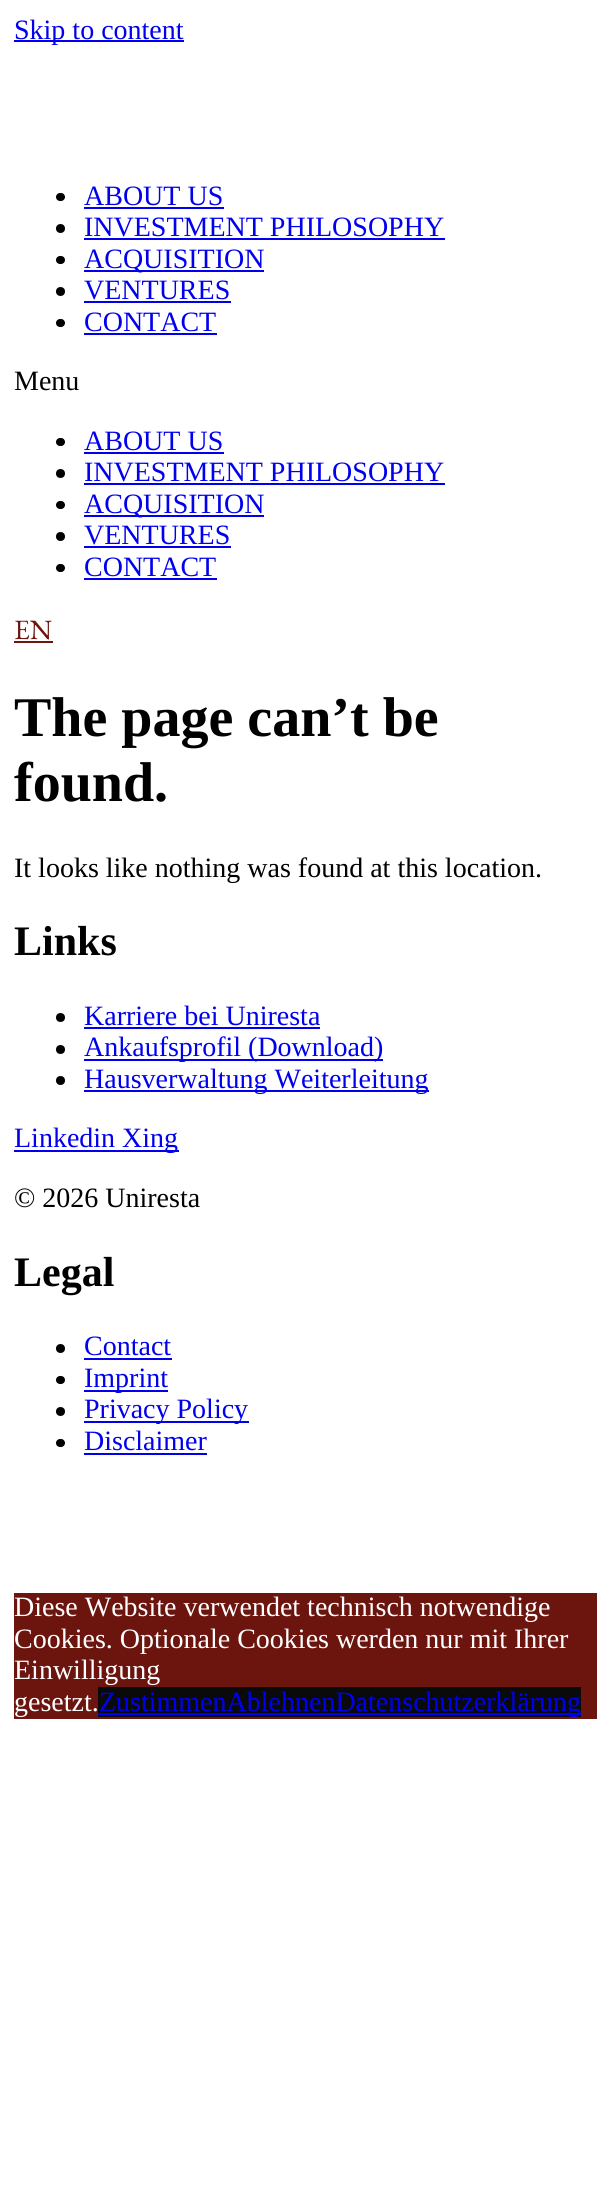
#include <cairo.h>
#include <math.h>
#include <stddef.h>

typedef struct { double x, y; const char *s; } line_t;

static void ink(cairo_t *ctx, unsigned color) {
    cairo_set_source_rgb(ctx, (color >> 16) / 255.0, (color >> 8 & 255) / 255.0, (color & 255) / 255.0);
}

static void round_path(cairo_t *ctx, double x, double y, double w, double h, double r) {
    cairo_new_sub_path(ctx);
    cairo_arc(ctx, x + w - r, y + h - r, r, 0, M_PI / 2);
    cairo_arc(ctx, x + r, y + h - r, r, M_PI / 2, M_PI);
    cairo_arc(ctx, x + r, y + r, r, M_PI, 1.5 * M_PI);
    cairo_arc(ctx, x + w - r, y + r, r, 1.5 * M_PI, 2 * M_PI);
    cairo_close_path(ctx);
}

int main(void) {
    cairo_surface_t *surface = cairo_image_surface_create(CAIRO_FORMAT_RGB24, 610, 2189);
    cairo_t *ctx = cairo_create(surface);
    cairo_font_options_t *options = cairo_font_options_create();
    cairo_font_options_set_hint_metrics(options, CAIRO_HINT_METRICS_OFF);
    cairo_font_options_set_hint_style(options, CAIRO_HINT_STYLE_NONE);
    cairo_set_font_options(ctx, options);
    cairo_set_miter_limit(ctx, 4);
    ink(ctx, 0xFFFFFF);
    cairo_paint(ctx);
    ink(ctx, 0x0000EE);
    cairo_rectangle(ctx, 14, 40, 170, 2);
    cairo_fill(ctx);
    cairo_select_font_face(ctx, "Liberation Serif", CAIRO_FONT_SLANT_NORMAL, CAIRO_FONT_WEIGHT_NORMAL);
    cairo_set_font_size(ctx, 28);
    cairo_move_to(ctx, 14, 39);
    cairo_show_text(ctx, "Skip to content");
    ink(ctx, 0x000000);
    round_path(ctx, 56, 193, 9, 8, 4);
    cairo_fill(ctx);
    ink(ctx, 0x0000EE);
    cairo_move_to(ctx, 84, 205);
    cairo_show_text(ctx, "ABOUT US");
    cairo_rectangle(ctx, 84, 207, 140, 2);
    cairo_fill(ctx);
    ink(ctx, 0x000000);
    cairo_arc(ctx, 60.5, 228.5, 4.5, 0, 2 * M_PI);
    cairo_fill(ctx);
    ink(ctx, 0x0000EE);
    cairo_move_to(ctx, 84, 236);
    cairo_show_text(ctx, "INVESTMENT PHILOSOPHY");
    cairo_rectangle(ctx, 84, 238, 361, 2);
    cairo_fill(ctx);
    ink(ctx, 0x000000);
    round_path(ctx, 56, 256, 9, 8, 4);
    cairo_fill(ctx);
    ink(ctx, 0x0000EE);
    cairo_rectangle(ctx, 84, 270, 180, 2);
    cairo_fill(ctx);
    cairo_move_to(ctx, 84, 268);
    cairo_show_text(ctx, "ACQUISITION");
    ink(ctx, 0x000000);
    cairo_new_path(ctx);
    cairo_arc(ctx, 60.5, 291.5, 4.5, 0, 2 * M_PI);
    cairo_fill(ctx);
    ink(ctx, 0x0000EE);
    cairo_move_to(ctx, 84, 299);
    cairo_show_text(ctx, "VENTURES");
    cairo_rectangle(ctx, 84, 301, 147, 2);
    cairo_fill(ctx);
    ink(ctx, 0x000000);
    round_path(ctx, 56, 319, 9, 8, 4);
    cairo_fill(ctx);
    ink(ctx, 0x0000EE);
    cairo_move_to(ctx, 84, 331);
    cairo_show_text(ctx, "CONTACT");
    cairo_rectangle(ctx, 84, 333, 133, 2);
    cairo_fill(ctx);
    ink(ctx, 0x000000);
    cairo_move_to(ctx, 14, 390);
    cairo_show_text(ctx, "Menu");
    round_path(ctx, 56, 438, 9, 8, 4);
    cairo_fill(ctx);
    ink(ctx, 0x0000EE);
    cairo_move_to(ctx, 84, 450);
    cairo_show_text(ctx, "ABOUT US");
    cairo_rectangle(ctx, 84, 452, 140, 2);
    cairo_fill(ctx);
    ink(ctx, 0x000000);
    cairo_arc(ctx, 60.5, 473.5, 4.5, 0, 2 * M_PI);
    cairo_fill(ctx);
    ink(ctx, 0x0000EE);
    cairo_move_to(ctx, 84, 481);
    cairo_show_text(ctx, "INVESTMENT PHILOSOPHY");
    cairo_rectangle(ctx, 84, 483, 361, 2);
    cairo_fill(ctx);
    ink(ctx, 0x000000);
    round_path(ctx, 56, 501, 9, 8, 4);
    cairo_fill(ctx);
    ink(ctx, 0x0000EE);
    cairo_rectangle(ctx, 84, 515, 180, 2);
    cairo_fill(ctx);
    cairo_move_to(ctx, 84, 513);
    cairo_show_text(ctx, "ACQUISITION");
    ink(ctx, 0x000000);
    cairo_new_path(ctx);
    cairo_arc(ctx, 60.5, 536.5, 4.5, 0, 2 * M_PI);
    cairo_fill(ctx);
    ink(ctx, 0x0000EE);
    cairo_move_to(ctx, 84, 544);
    cairo_show_text(ctx, "VENTURES");
    cairo_rectangle(ctx, 84, 546, 147, 2);
    cairo_fill(ctx);
    ink(ctx, 0x000000);
    round_path(ctx, 56, 564, 9, 8, 4);
    cairo_fill(ctx);
    ink(ctx, 0x0000EE);
    cairo_move_to(ctx, 84, 576);
    cairo_show_text(ctx, "CONTACT");
    cairo_rectangle(ctx, 84, 578, 133, 2);
    cairo_fill(ctx);
    cairo_select_font_face(ctx, "EB Garamond", CAIRO_FONT_SLANT_NORMAL, CAIRO_FONT_WEIGHT_NORMAL);
    ink(ctx, 0x6E150F);
    cairo_move_to(ctx, 14, 639);
    cairo_show_text(ctx, "EN");
    cairo_rectangle(ctx, 14, 641, 39, 2);
    cairo_fill(ctx);
    cairo_select_font_face(ctx, "Liberation Serif", CAIRO_FONT_SLANT_NORMAL, CAIRO_FONT_WEIGHT_BOLD);
    cairo_set_font_size(ctx, 56);
    ink(ctx, 0x000000);
    cairo_move_to(ctx, 14, 736);
    cairo_show_text(ctx, "The page can’t be");
    cairo_move_to(ctx, 14, 801);
    cairo_show_text(ctx, "found.");
    cairo_select_font_face(ctx, "Liberation Serif", CAIRO_FONT_SLANT_NORMAL, CAIRO_FONT_WEIGHT_NORMAL);
    cairo_set_font_size(ctx, 28);
    cairo_move_to(ctx, 14, 877);
    cairo_show_text(ctx, "It looks like nothing was found at this location.");
    cairo_select_font_face(ctx, "Liberation Serif", CAIRO_FONT_SLANT_NORMAL, CAIRO_FONT_WEIGHT_BOLD);
    cairo_set_font_size(ctx, 42);
    cairo_move_to(ctx, 14, 955);
    cairo_show_text(ctx, "Links");
    cairo_new_path(ctx);
    cairo_arc(ctx, 60.5, 1017.5, 4.5, 0, 2 * M_PI);
    cairo_fill(ctx);
    cairo_select_font_face(ctx, "Liberation Serif", CAIRO_FONT_SLANT_NORMAL, CAIRO_FONT_WEIGHT_NORMAL);
    cairo_set_font_size(ctx, 28);
    ink(ctx, 0x0000EE);
    cairo_move_to(ctx, 84, 1025);
    cairo_show_text(ctx, "Karriere bei Uniresta");
    cairo_rectangle(ctx, 84, 1027, 236, 2);
    cairo_fill(ctx);
    ink(ctx, 0x000000);
    cairo_arc(ctx, 60.5, 1049.5, 4.5, 0, 2 * M_PI);
    cairo_fill(ctx);
    ink(ctx, 0x0000EE);
    cairo_rectangle(ctx, 84, 1059, 299, 2);
    cairo_fill(ctx);
    cairo_move_to(ctx, 84, 1056);
    cairo_show_text(ctx, "Ankaufsprofil (Download)");
    ink(ctx, 0x000000);
    cairo_new_path(ctx);
    cairo_arc(ctx, 60.5, 1080.5, 4.5, 0, 2 * M_PI);
    cairo_fill(ctx);
    ink(ctx, 0x0000EE);
    cairo_rectangle(ctx, 84, 1090, 345, 2);
    cairo_fill(ctx);
    cairo_move_to(ctx, 84, 1088);
    cairo_show_text(ctx, "Hausverwaltung Weiterleitung");
    cairo_rectangle(ctx, 14, 1150, 165, 2);
    cairo_fill(ctx);
    cairo_move_to(ctx, 14, 1147);
    cairo_show_text(ctx, "Linkedin Xing");
    ink(ctx, 0x000000);
    cairo_move_to(ctx, 14, 1207);
    cairo_show_text(ctx, "© 2026 Uniresta");
    cairo_select_font_face(ctx, "Liberation Serif", CAIRO_FONT_SLANT_NORMAL, CAIRO_FONT_WEIGHT_BOLD);
    cairo_set_font_size(ctx, 42);
    cairo_move_to(ctx, 14, 1286);
    cairo_show_text(ctx, "Legal");
    cairo_new_path(ctx);
    cairo_arc(ctx, 60.5, 1348.5, 4.5, 0, 2 * M_PI);
    cairo_fill(ctx);
    cairo_select_font_face(ctx, "Liberation Serif", CAIRO_FONT_SLANT_NORMAL, CAIRO_FONT_WEIGHT_NORMAL);
    cairo_set_font_size(ctx, 28);
    ink(ctx, 0x0000EE);
    cairo_move_to(ctx, 84, 1355);
    cairo_show_text(ctx, "Contact");
    cairo_rectangle(ctx, 84, 1358, 88, 2);
    cairo_fill(ctx);
    ink(ctx, 0x000000);
    round_path(ctx, 56, 1376, 9, 8, 4);
    cairo_fill(ctx);
    ink(ctx, 0x0000EE);
    cairo_rectangle(ctx, 84, 1390, 84, 2);
    cairo_fill(ctx);
    cairo_move_to(ctx, 84, 1387);
    cairo_show_text(ctx, "Imprint");
    ink(ctx, 0x000000);
    cairo_new_path(ctx);
    cairo_arc(ctx, 60.5, 1411.5, 4.5, 0, 2 * M_PI);
    cairo_fill(ctx);
    ink(ctx, 0x0000EE);
    cairo_rectangle(ctx, 84, 1421, 165, 2);
    cairo_fill(ctx);
    cairo_move_to(ctx, 84, 1418);
    cairo_show_text(ctx, "Privacy Policy");
    ink(ctx, 0x000000);
    round_path(ctx, 56, 1439, 9, 8, 4);
    cairo_fill(ctx);
    ink(ctx, 0x0000EE);
    cairo_move_to(ctx, 84, 1450);
    cairo_show_text(ctx, "Disclaimer");
    cairo_rectangle(ctx, 84, 1453, 123, 2);
    cairo_fill(ctx);
    ink(ctx, 0x6C150F);
    cairo_rectangle(ctx, 14, 1593, 583, 126);
    cairo_fill(ctx);
    ink(ctx, 0xFFFFFF);
    {
        static const line_t items[] = {
            {14, 1616, "Diese Website verwendet technisch notwendige"},
            {14, 1648, "Cookies. Optionale Cookies werden nur mit Ihrer"},
            {14, 1679, "Einwilligung"},
            {14, 1711, "gesetzt."},
        };
        for (size_t i = 0; i < sizeof items / sizeof *items; i++) {
            cairo_move_to(ctx, items[i].x, items[i].y);
            cairo_show_text(ctx, items[i].s);
        }
    }
    ink(ctx, 0x0A0A0A);
    cairo_rectangle(ctx, 98, 1687, 483, 30);
    cairo_fill(ctx);
    ink(ctx, 0x0000EE);
    cairo_rectangle(ctx, 98, 1713, 483, 2);
    cairo_fill(ctx);
    cairo_move_to(ctx, 99, 1711);
    cairo_show_text(ctx, "ZustimmenAblehnenDatenschutzerklärung");
    cairo_surface_write_to_png(surface, "image.png");
    cairo_font_options_destroy(options);
    cairo_destroy(ctx);
    cairo_surface_destroy(surface);
    return 0;
}
